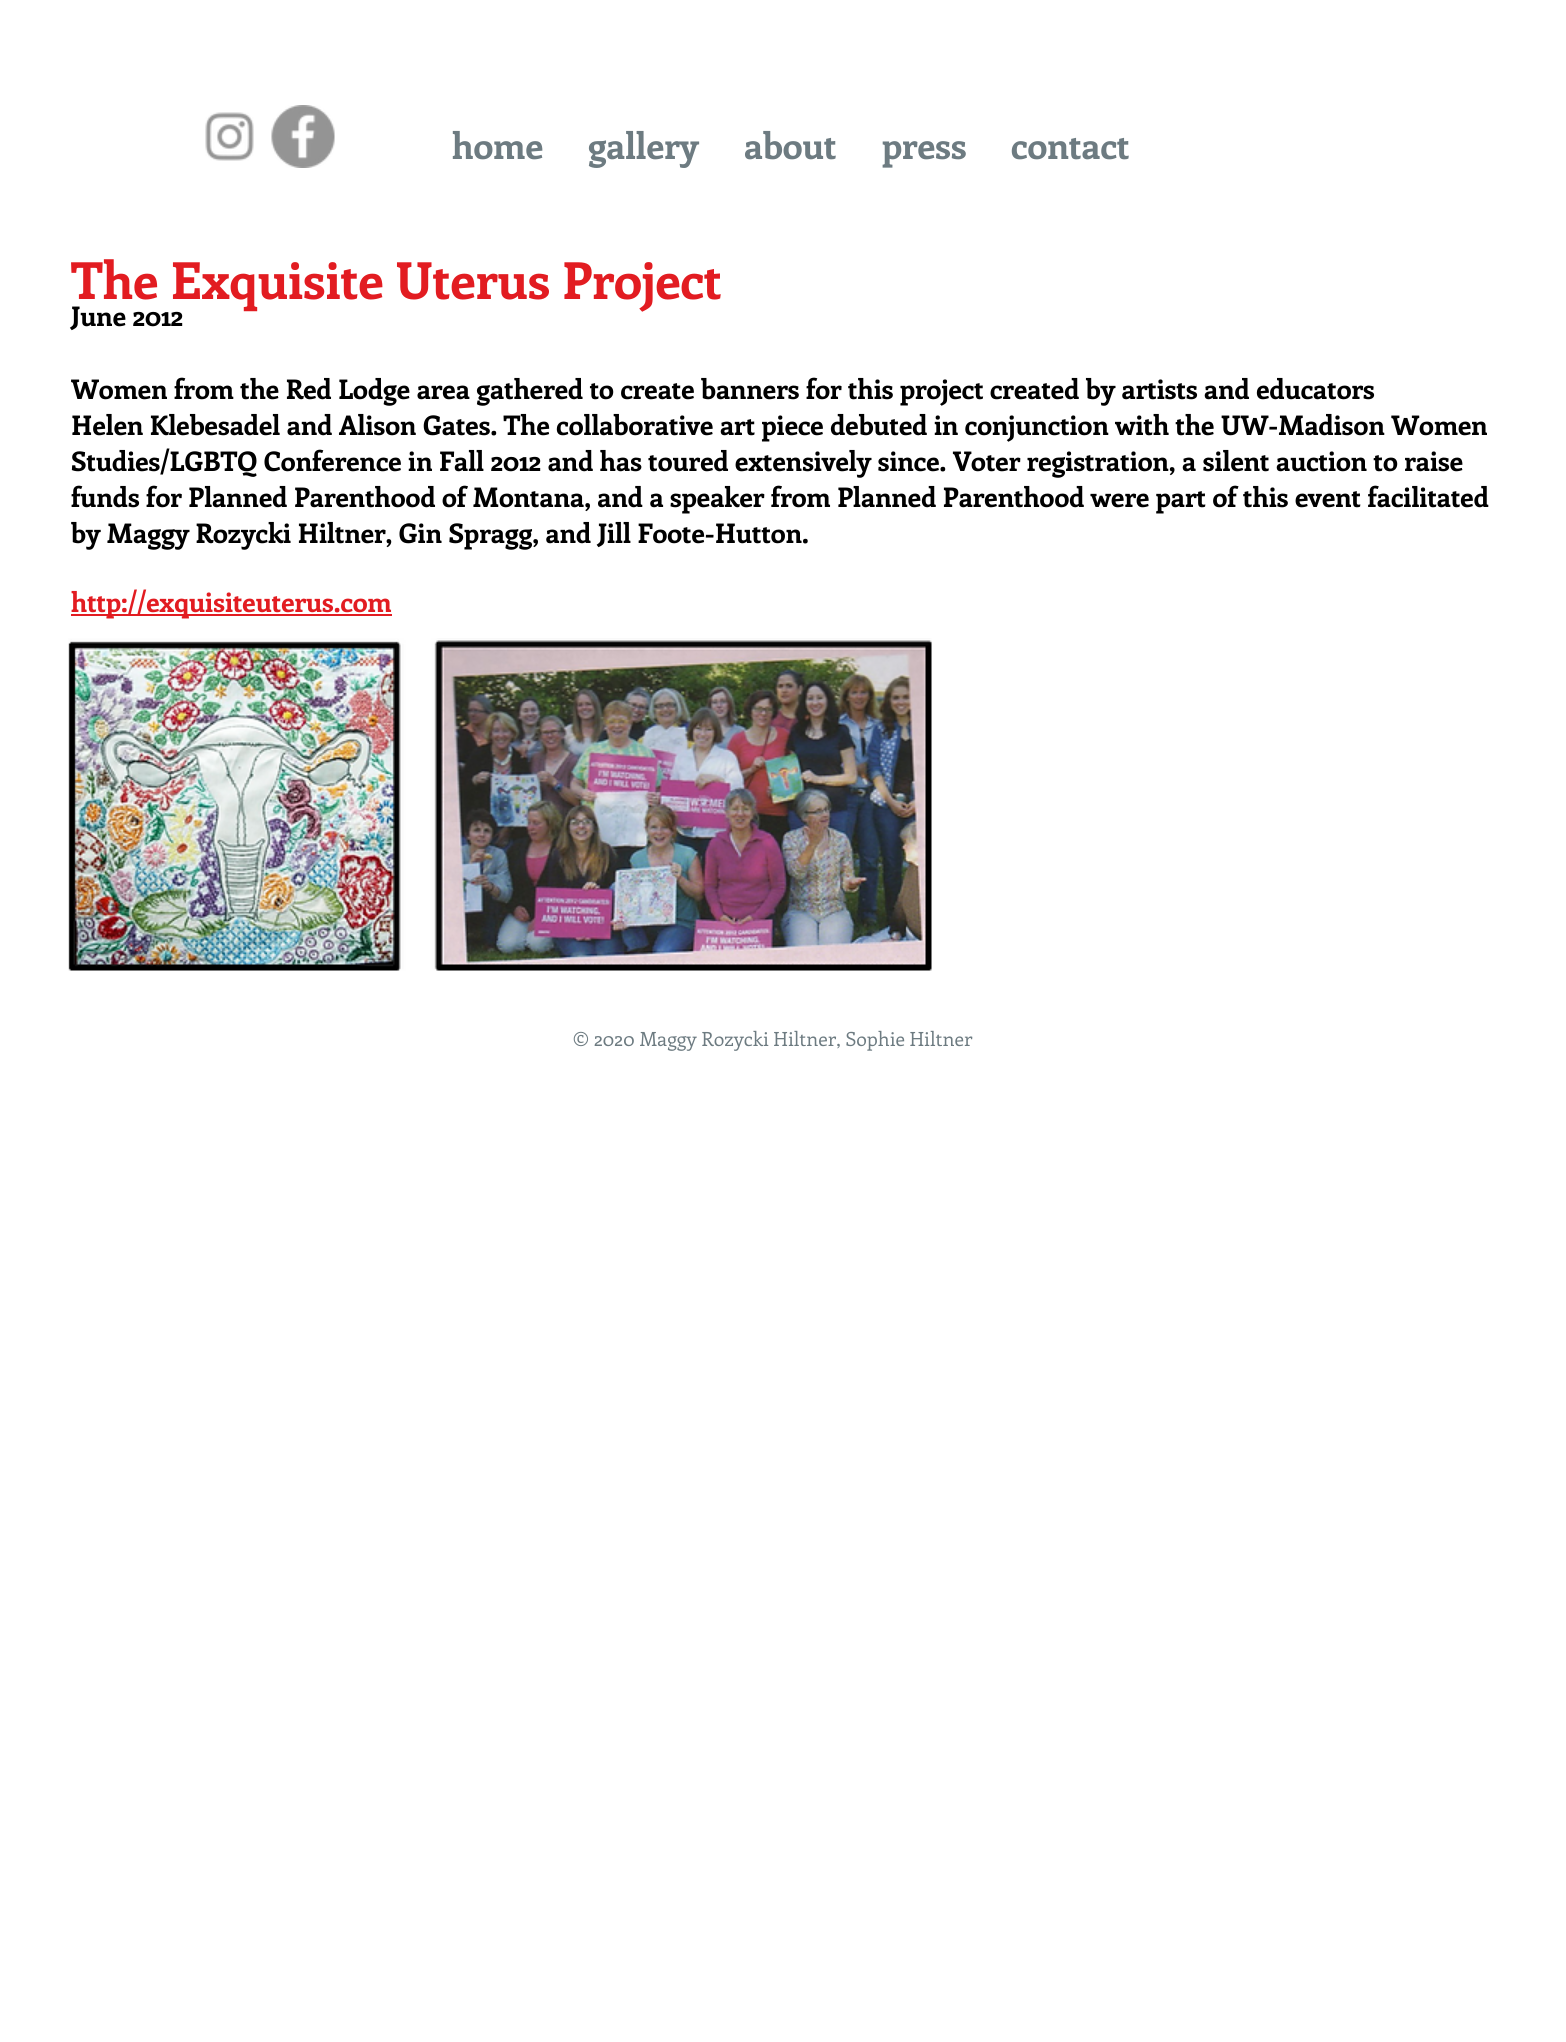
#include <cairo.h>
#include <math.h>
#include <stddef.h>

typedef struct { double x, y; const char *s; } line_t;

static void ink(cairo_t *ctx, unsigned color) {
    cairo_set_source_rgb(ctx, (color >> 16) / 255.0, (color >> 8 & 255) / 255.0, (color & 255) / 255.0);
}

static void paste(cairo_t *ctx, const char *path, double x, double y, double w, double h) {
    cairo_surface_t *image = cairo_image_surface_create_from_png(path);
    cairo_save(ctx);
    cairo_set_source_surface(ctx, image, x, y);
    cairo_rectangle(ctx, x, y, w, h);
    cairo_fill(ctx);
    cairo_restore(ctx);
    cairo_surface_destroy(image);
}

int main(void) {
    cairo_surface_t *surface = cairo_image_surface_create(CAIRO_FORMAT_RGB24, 1566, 2042);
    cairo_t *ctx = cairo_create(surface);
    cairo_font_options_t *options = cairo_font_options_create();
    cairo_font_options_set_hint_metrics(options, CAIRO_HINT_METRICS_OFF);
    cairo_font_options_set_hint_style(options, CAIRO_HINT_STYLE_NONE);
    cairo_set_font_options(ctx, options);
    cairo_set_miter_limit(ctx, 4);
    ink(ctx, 0xFFFFFF);
    cairo_paint(ctx);
    paste(ctx, "media/1.png", 205, 112, 49, 49);
    paste(ctx, "media/2.png", 271, 105, 64, 63);
    cairo_select_font_face(ctx, "Enriqueta", CAIRO_FONT_SLANT_NORMAL, CAIRO_FONT_WEIGHT_BOLD);
    cairo_set_font_size(ctx, 36);
    ink(ctx, 0x6D7B81);
    {
        static const line_t items[] = {
            {452, 159, "home"},
            {588, 159, "gallery"},
            {744, 159, "about"},
            {882, 159, "press"},
            {1011, 159, "contact"},
        };
        for (size_t i = 0; i < sizeof items / sizeof *items; i++) {
            cairo_move_to(ctx, items[i].x, items[i].y);
            cairo_show_text(ctx, items[i].s);
        }
    }
    cairo_set_font_size(ctx, 51);
    ink(ctx, 0xE21C21);
    cairo_move_to(ctx, 71, 299);
    cairo_show_text(ctx, "The Exquisite Uterus Project");
    cairo_set_font_size(ctx, 27);
    ink(ctx, 0x000000);
    {
        static const line_t items[] = {
            {71, 326, "June 2012"},
            {71, 399, "Women from the Red Lodge area gathered to create banners for this project created by artists and educators"},
            {71, 435, "Helen Klebesadel and Alison Gates. The collaborative art piece debuted in conjunction with the UW-Madison Women"},
            {71, 471, "Studies/LGBTQ Conference in Fall 2012 and has toured extensively since. Voter registration, a silent auction to raise"},
            {71, 507, "funds for Planned Parenthood of Montana, and a speaker from Planned Parenthood were part of this event facilitated"},
            {71, 543, "by Maggy Rozycki Hiltner, Gin Spragg, and Jill Foote-Hutton."},
        };
        for (size_t i = 0; i < sizeof items / sizeof *items; i++) {
            cairo_move_to(ctx, items[i].x, items[i].y);
            cairo_show_text(ctx, items[i].s);
        }
    }
    ink(ctx, 0xE21C21);
    cairo_rectangle(ctx, 71, 614, 321, 2);
    cairo_fill(ctx);
    cairo_move_to(ctx, 71, 612);
    cairo_show_text(ctx, "http://exquisiteuterus.com");
    paste(ctx, "media/3.png", 68, 638, 864, 333);
    cairo_select_font_face(ctx, "Enriqueta", CAIRO_FONT_SLANT_NORMAL, CAIRO_FONT_WEIGHT_NORMAL);
    cairo_set_font_size(ctx, 19.5);
    ink(ctx, 0x6D7B81);
    cairo_move_to(ctx, 573, 1046);
    cairo_show_text(ctx, "© 2020 Maggy Rozycki Hiltner, Sophie Hiltner");
    cairo_surface_write_to_png(surface, "image.png");
    cairo_font_options_destroy(options);
    cairo_destroy(ctx);
    cairo_surface_destroy(surface);
    return 0;
}
